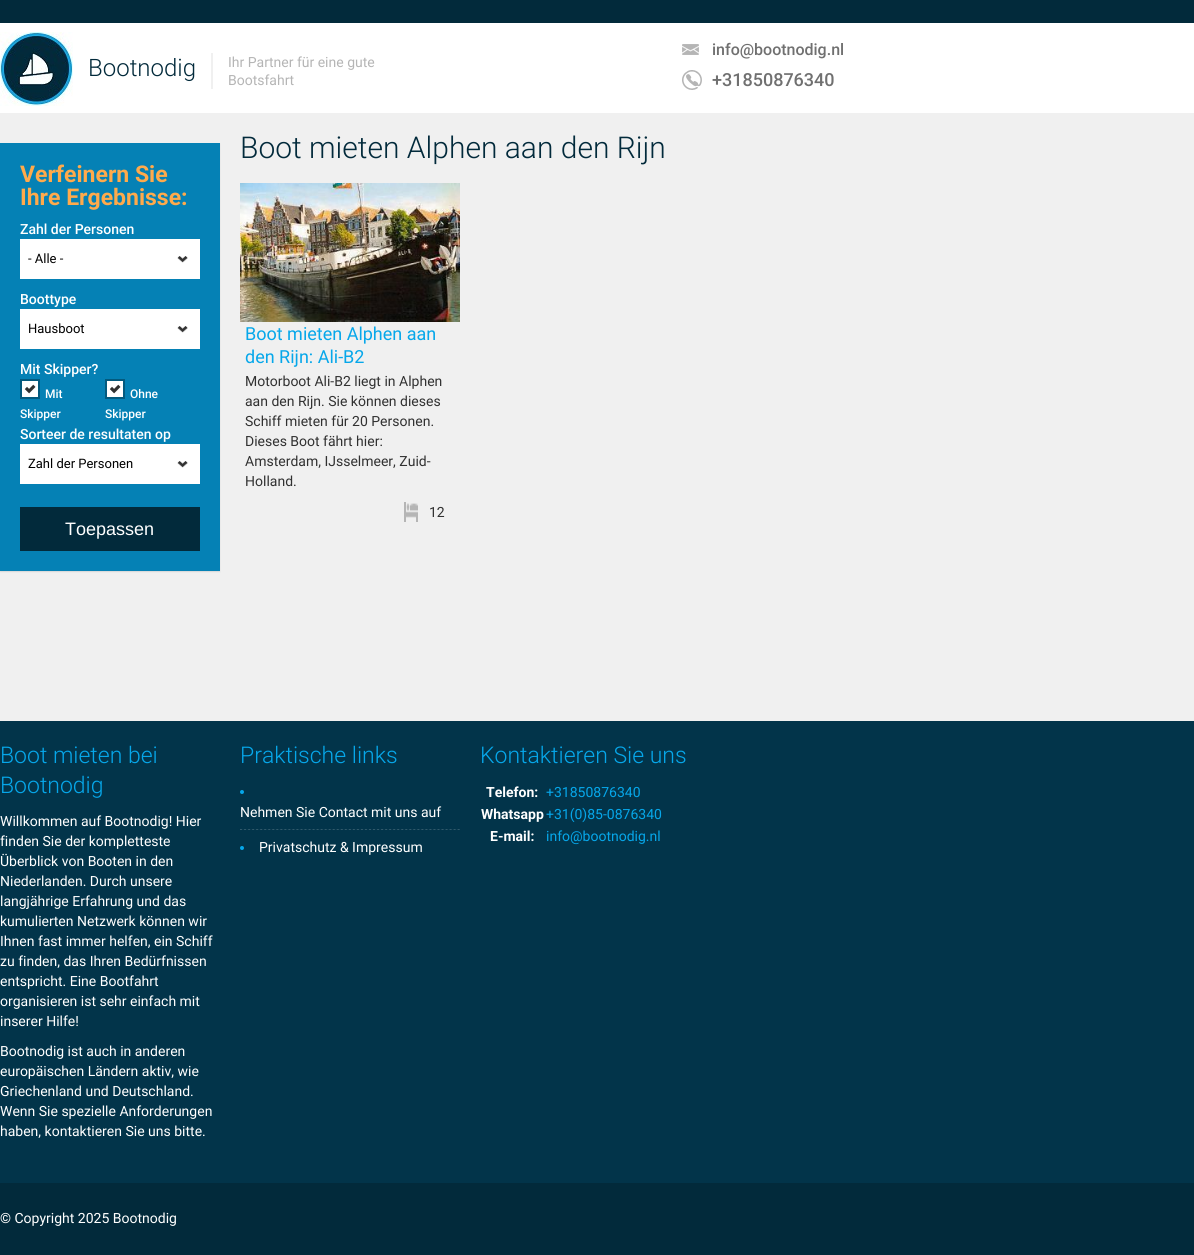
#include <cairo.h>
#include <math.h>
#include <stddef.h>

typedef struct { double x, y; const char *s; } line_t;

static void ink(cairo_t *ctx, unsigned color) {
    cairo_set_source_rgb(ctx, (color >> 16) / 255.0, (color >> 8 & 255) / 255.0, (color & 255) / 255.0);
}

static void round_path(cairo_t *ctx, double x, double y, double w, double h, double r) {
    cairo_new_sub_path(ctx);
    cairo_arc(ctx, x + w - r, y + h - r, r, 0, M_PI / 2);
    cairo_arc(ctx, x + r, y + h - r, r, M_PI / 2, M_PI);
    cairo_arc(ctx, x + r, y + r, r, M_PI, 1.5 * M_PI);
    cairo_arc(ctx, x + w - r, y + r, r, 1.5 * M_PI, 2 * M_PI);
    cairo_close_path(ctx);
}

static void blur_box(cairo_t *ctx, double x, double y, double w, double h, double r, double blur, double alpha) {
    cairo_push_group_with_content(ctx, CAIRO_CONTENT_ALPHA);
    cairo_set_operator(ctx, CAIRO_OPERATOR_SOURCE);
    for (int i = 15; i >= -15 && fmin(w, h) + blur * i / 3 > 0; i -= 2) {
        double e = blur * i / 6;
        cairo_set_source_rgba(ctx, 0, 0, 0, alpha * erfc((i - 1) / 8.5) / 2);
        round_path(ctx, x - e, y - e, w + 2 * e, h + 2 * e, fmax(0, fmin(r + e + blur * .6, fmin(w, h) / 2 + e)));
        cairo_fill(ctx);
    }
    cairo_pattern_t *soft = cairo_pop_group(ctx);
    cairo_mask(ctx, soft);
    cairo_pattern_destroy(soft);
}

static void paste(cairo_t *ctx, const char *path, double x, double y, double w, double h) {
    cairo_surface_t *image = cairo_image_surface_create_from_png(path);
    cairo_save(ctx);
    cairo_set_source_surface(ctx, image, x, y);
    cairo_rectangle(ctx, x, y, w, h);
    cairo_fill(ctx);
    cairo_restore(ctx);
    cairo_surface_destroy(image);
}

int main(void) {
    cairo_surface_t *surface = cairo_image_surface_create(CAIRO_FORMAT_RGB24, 1194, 1255);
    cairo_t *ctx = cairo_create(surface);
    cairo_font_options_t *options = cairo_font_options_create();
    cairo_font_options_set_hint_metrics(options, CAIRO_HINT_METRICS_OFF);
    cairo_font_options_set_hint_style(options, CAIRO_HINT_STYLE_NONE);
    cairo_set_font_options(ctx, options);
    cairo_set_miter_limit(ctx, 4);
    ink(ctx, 0xF0F0F0);
    cairo_paint(ctx);
    ink(ctx, 0x022A3B);
    cairo_rectangle(ctx, 0, 0, 1194, 23);
    cairo_fill(ctx);
    ink(ctx, 0xFFFFFF);
    cairo_rectangle(ctx, 0, 23, 1194, 90);
    cairo_fill(ctx);
    paste(ctx, "media/1.png", 0, 32, 73, 74);
    cairo_select_font_face(ctx, "Roboto Light", CAIRO_FONT_SLANT_NORMAL, CAIRO_FONT_WEIGHT_NORMAL);
    cairo_set_font_size(ctx, 24);
    ink(ctx, 0x022A3B);
    cairo_move_to(ctx, 88, 76);
    cairo_show_text(ctx, "Bootnodig");
    ink(ctx, 0xF0F0F0);
    cairo_rectangle(ctx, 211, 53, 2, 36);
    cairo_fill(ctx);
    cairo_select_font_face(ctx, "Roboto", CAIRO_FONT_SLANT_NORMAL, CAIRO_FONT_WEIGHT_NORMAL);
    cairo_set_font_size(ctx, 14);
    ink(ctx, 0xB5B5B5);
    cairo_move_to(ctx, 228, 67);
    cairo_show_text(ctx, "Ihr Partner für eine gute");
    cairo_move_to(ctx, 228, 85);
    cairo_show_text(ctx, "Bootsfahrt");
    paste(ctx, "media/2.png", 682, 44, 17, 11);
    cairo_select_font_face(ctx, "Roboto Medium", CAIRO_FONT_SLANT_NORMAL, CAIRO_FONT_WEIGHT_NORMAL);
    cairo_set_font_size(ctx, 16);
    ink(ctx, 0x707070);
    cairo_move_to(ctx, 712, 55);
    cairo_show_text(ctx, "info@bootnodig.nl");
    paste(ctx, "media/3.png", 682, 70, 20, 20);
    cairo_set_font_size(ctx, 18);
    cairo_move_to(ctx, 712, 86);
    cairo_show_text(ctx, "+31850876340");
    ink(ctx, 0x000000);
    blur_box(ctx, 0, 144, 220, 428, 0, 0.5, 0.1);
    ink(ctx, 0x0581B5);
    cairo_rectangle(ctx, 0, 143, 220, 428);
    cairo_fill(ctx);
    cairo_select_font_face(ctx, "Roboto", CAIRO_FONT_SLANT_NORMAL, CAIRO_FONT_WEIGHT_BOLD);
    cairo_set_font_size(ctx, 23);
    ink(ctx, 0xFFAA4B);
    cairo_move_to(ctx, 20, 182);
    cairo_show_text(ctx, "Verfeinern Sie");
    cairo_move_to(ctx, 20, 205);
    cairo_show_text(ctx, "Ihre Ergebnisse:");
    cairo_select_font_face(ctx, "Roboto Medium", CAIRO_FONT_SLANT_NORMAL, CAIRO_FONT_WEIGHT_NORMAL);
    cairo_set_font_size(ctx, 14);
    ink(ctx, 0xFFFFFF);
    cairo_move_to(ctx, 20, 234);
    cairo_show_text(ctx, "Zahl der Personen");
    cairo_rectangle(ctx, 20, 239, 180, 40);
    cairo_fill(ctx);
    cairo_select_font_face(ctx, "Roboto", CAIRO_FONT_SLANT_NORMAL, CAIRO_FONT_WEIGHT_NORMAL);
    cairo_set_font_size(ctx, 13);
    ink(ctx, 0x000000);
    cairo_move_to(ctx, 28, 263);
    cairo_show_text(ctx, "- Alle -");
    paste(ctx, "media/4.png", 177, 256, 11, 7);
    cairo_select_font_face(ctx, "Roboto Medium", CAIRO_FONT_SLANT_NORMAL, CAIRO_FONT_WEIGHT_NORMAL);
    cairo_set_font_size(ctx, 14);
    ink(ctx, 0xFFFFFF);
    cairo_move_to(ctx, 20, 304);
    cairo_show_text(ctx, "Boottype");
    cairo_rectangle(ctx, 20, 309, 180, 40);
    cairo_fill(ctx);
    cairo_select_font_face(ctx, "Roboto", CAIRO_FONT_SLANT_NORMAL, CAIRO_FONT_WEIGHT_NORMAL);
    cairo_set_font_size(ctx, 13);
    ink(ctx, 0x000000);
    cairo_move_to(ctx, 28, 333);
    cairo_show_text(ctx, "Hausboot");
    paste(ctx, "media/4.png", 177, 326, 11, 7);
    cairo_select_font_face(ctx, "Roboto Medium", CAIRO_FONT_SLANT_NORMAL, CAIRO_FONT_WEIGHT_NORMAL);
    cairo_set_font_size(ctx, 14);
    ink(ctx, 0xFFFFFF);
    cairo_move_to(ctx, 20, 374);
    cairo_show_text(ctx, "Mit Skipper?");
    paste(ctx, "media/5.png", 20, 379, 20, 20);
    cairo_set_font_size(ctx, 12);
    cairo_move_to(ctx, 45, 398);
    cairo_show_text(ctx, "Mit");
    cairo_move_to(ctx, 20, 418);
    cairo_show_text(ctx, "Skipper");
    paste(ctx, "media/5.png", 105, 379, 20, 20);
    cairo_move_to(ctx, 130, 398);
    cairo_show_text(ctx, "Ohne");
    cairo_move_to(ctx, 105, 418);
    cairo_show_text(ctx, "Skipper");
    cairo_set_font_size(ctx, 14);
    cairo_move_to(ctx, 20, 439);
    cairo_show_text(ctx, "Sorteer de resultaten op");
    cairo_rectangle(ctx, 20, 444, 180, 40);
    cairo_fill(ctx);
    cairo_select_font_face(ctx, "Roboto", CAIRO_FONT_SLANT_NORMAL, CAIRO_FONT_WEIGHT_NORMAL);
    cairo_set_font_size(ctx, 13);
    ink(ctx, 0x000000);
    cairo_move_to(ctx, 28, 468);
    cairo_show_text(ctx, "Zahl der Personen");
    paste(ctx, "media/4.png", 177, 461, 11, 7);
    ink(ctx, 0x022A3B);
    cairo_rectangle(ctx, 20, 507, 180, 44);
    cairo_fill(ctx);
    cairo_select_font_face(ctx, "Liberation Sans", CAIRO_FONT_SLANT_NORMAL, CAIRO_FONT_WEIGHT_NORMAL);
    cairo_set_font_size(ctx, 18);
    ink(ctx, 0xFFFFFF);
    cairo_move_to(ctx, 65, 535);
    cairo_show_text(ctx, "Toepassen");
    cairo_select_font_face(ctx, "Roboto Light", CAIRO_FONT_SLANT_NORMAL, CAIRO_FONT_WEIGHT_NORMAL);
    cairo_set_font_size(ctx, 30);
    ink(ctx, 0x022A3B);
    cairo_move_to(ctx, 240, 158);
    cairo_show_text(ctx, "Boot mieten Alphen aan den Rijn");
    paste(ctx, "media/6.png", 240, 183, 220, 139);
    cairo_select_font_face(ctx, "Roboto", CAIRO_FONT_SLANT_NORMAL, CAIRO_FONT_WEIGHT_NORMAL);
    cairo_set_font_size(ctx, 18);
    ink(ctx, 0x06A7EA);
    cairo_move_to(ctx, 245, 340);
    cairo_show_text(ctx, "Boot mieten Alphen aan");
    cairo_move_to(ctx, 245, 363);
    cairo_show_text(ctx, "den Rijn: Ali-B2");
    cairo_set_font_size(ctx, 14);
    ink(ctx, 0x313131);
    {
        static const line_t items[] = {
            {245, 386, "Motorboot Ali-B2 liegt in Alphen"},
            {245, 406, "aan den Rijn. Sie können dieses"},
            {245, 426, "Schiff mieten für 20 Personen."},
            {245, 446, "Dieses Boot fährt hier:"},
            {245, 466, "Amsterdam, IJsselmeer, Zuid-"},
            {245, 486, "Holland."},
        };
        for (size_t i = 0; i < sizeof items / sizeof *items; i++) {
            cairo_move_to(ctx, items[i].x, items[i].y);
            cairo_show_text(ctx, items[i].s);
        }
    }
    paste(ctx, "media/7.png", 404, 502, 14, 20);
    cairo_move_to(ctx, 429, 517);
    cairo_show_text(ctx, "12");
    ink(ctx, 0x022A3B);
    cairo_rectangle(ctx, 0, 1183, 1194, 72);
    cairo_fill(ctx);
    ink(ctx, 0x02344A);
    cairo_rectangle(ctx, 0, 721, 1194, 462);
    cairo_fill(ctx);
    cairo_select_font_face(ctx, "Roboto Light", CAIRO_FONT_SLANT_NORMAL, CAIRO_FONT_WEIGHT_NORMAL);
    cairo_set_font_size(ctx, 23);
    ink(ctx, 0x06A7EA);
    cairo_move_to(ctx, 0, 763);
    cairo_show_text(ctx, "Boot mieten bei");
    cairo_move_to(ctx, 0, 793);
    cairo_show_text(ctx, "Bootnodig");
    cairo_select_font_face(ctx, "Roboto", CAIRO_FONT_SLANT_NORMAL, CAIRO_FONT_WEIGHT_NORMAL);
    cairo_set_font_size(ctx, 14);
    ink(ctx, 0xFFFFFF);
    {
        static const line_t items[] = {
            {0, 826, "Willkommen auf Bootnodig! Hier"},
            {0, 846, "finden Sie der kompletteste"},
            {0, 866, "Überblick von Booten in den"},
            {0, 886, "Niederlanden. Durch unsere"},
            {0, 906, "langjährige Erfahrung und das"},
            {0, 926, "kumulierten Netzwerk können wir"},
            {0, 946, "Ihnen fast immer helfen, ein Schiff"},
            {0, 966, "zu finden, das Ihren Bedürfnissen"},
            {0, 986, "entspricht. Eine Bootfahrt"},
            {0, 1006, "organisieren ist sehr einfach mit"},
            {0, 1026, "inserer Hilfe!"},
            {0, 1056, "Bootnodig ist auch in anderen"},
            {0, 1076, "europäischen Ländern aktiv, wie"},
            {0, 1096, "Griechenland und Deutschland."},
            {0, 1116, "Wenn Sie spezielle Anforderungen"},
            {0, 1136, "haben, kontaktieren Sie uns bitte."},
        };
        for (size_t i = 0; i < sizeof items / sizeof *items; i++) {
            cairo_move_to(ctx, items[i].x, items[i].y);
            cairo_show_text(ctx, items[i].s);
        }
    }
    cairo_select_font_face(ctx, "Roboto Light", CAIRO_FONT_SLANT_NORMAL, CAIRO_FONT_WEIGHT_NORMAL);
    cairo_set_font_size(ctx, 23);
    ink(ctx, 0x06A7EA);
    cairo_move_to(ctx, 240, 763);
    cairo_show_text(ctx, "Praktische links");
    paste(ctx, "media/8.png", 240, 829, 220, 1);
    cairo_arc(ctx, 242, 792, 2, 0, 2 * M_PI);
    cairo_fill(ctx);
    cairo_select_font_face(ctx, "Roboto", CAIRO_FONT_SLANT_NORMAL, CAIRO_FONT_WEIGHT_NORMAL);
    cairo_set_font_size(ctx, 14);
    ink(ctx, 0xFFFFFF);
    cairo_move_to(ctx, 240, 817);
    cairo_show_text(ctx, "Nehmen Sie Contact mit uns auf");
    ink(ctx, 0x06A7EA);
    cairo_new_path(ctx);
    cairo_arc(ctx, 242, 848, 2, 0, 2 * M_PI);
    cairo_fill(ctx);
    ink(ctx, 0xFFFFFF);
    cairo_move_to(ctx, 259, 852);
    cairo_show_text(ctx, "Privatschutz & Impressum");
    cairo_select_font_face(ctx, "Roboto Light", CAIRO_FONT_SLANT_NORMAL, CAIRO_FONT_WEIGHT_NORMAL);
    cairo_set_font_size(ctx, 23);
    ink(ctx, 0x06A7EA);
    cairo_move_to(ctx, 480, 763);
    cairo_show_text(ctx, "Kontaktieren Sie uns");
    cairo_select_font_face(ctx, "Roboto", CAIRO_FONT_SLANT_NORMAL, CAIRO_FONT_WEIGHT_BOLD);
    cairo_set_font_size(ctx, 14);
    ink(ctx, 0xFFFFFF);
    cairo_move_to(ctx, 486, 797);
    cairo_show_text(ctx, "Telefon:");
    cairo_select_font_face(ctx, "Roboto", CAIRO_FONT_SLANT_NORMAL, CAIRO_FONT_WEIGHT_NORMAL);
    ink(ctx, 0x06A7EA);
    cairo_move_to(ctx, 546, 797);
    cairo_show_text(ctx, "+31850876340");
    cairo_select_font_face(ctx, "Roboto", CAIRO_FONT_SLANT_NORMAL, CAIRO_FONT_WEIGHT_BOLD);
    ink(ctx, 0xFFFFFF);
    cairo_move_to(ctx, 481, 819);
    cairo_show_text(ctx, "Whatsapp");
    cairo_select_font_face(ctx, "Roboto", CAIRO_FONT_SLANT_NORMAL, CAIRO_FONT_WEIGHT_NORMAL);
    ink(ctx, 0x06A7EA);
    cairo_move_to(ctx, 546, 819);
    cairo_show_text(ctx, "+31(0)85-0876340");
    cairo_select_font_face(ctx, "Roboto", CAIRO_FONT_SLANT_NORMAL, CAIRO_FONT_WEIGHT_BOLD);
    ink(ctx, 0xFFFFFF);
    cairo_move_to(ctx, 490, 841);
    cairo_show_text(ctx, "E-mail:");
    cairo_select_font_face(ctx, "Roboto", CAIRO_FONT_SLANT_NORMAL, CAIRO_FONT_WEIGHT_NORMAL);
    ink(ctx, 0x06A7EA);
    cairo_move_to(ctx, 546, 841);
    cairo_show_text(ctx, "info@bootnodig.nl");
    ink(ctx, 0xFFFFFF);
    cairo_move_to(ctx, 0, 1223);
    cairo_show_text(ctx, "© Copyright 2025 Bootnodig");
    cairo_surface_write_to_png(surface, "image.png");
    cairo_font_options_destroy(options);
    cairo_destroy(ctx);
    cairo_surface_destroy(surface);
    return 0;
}
